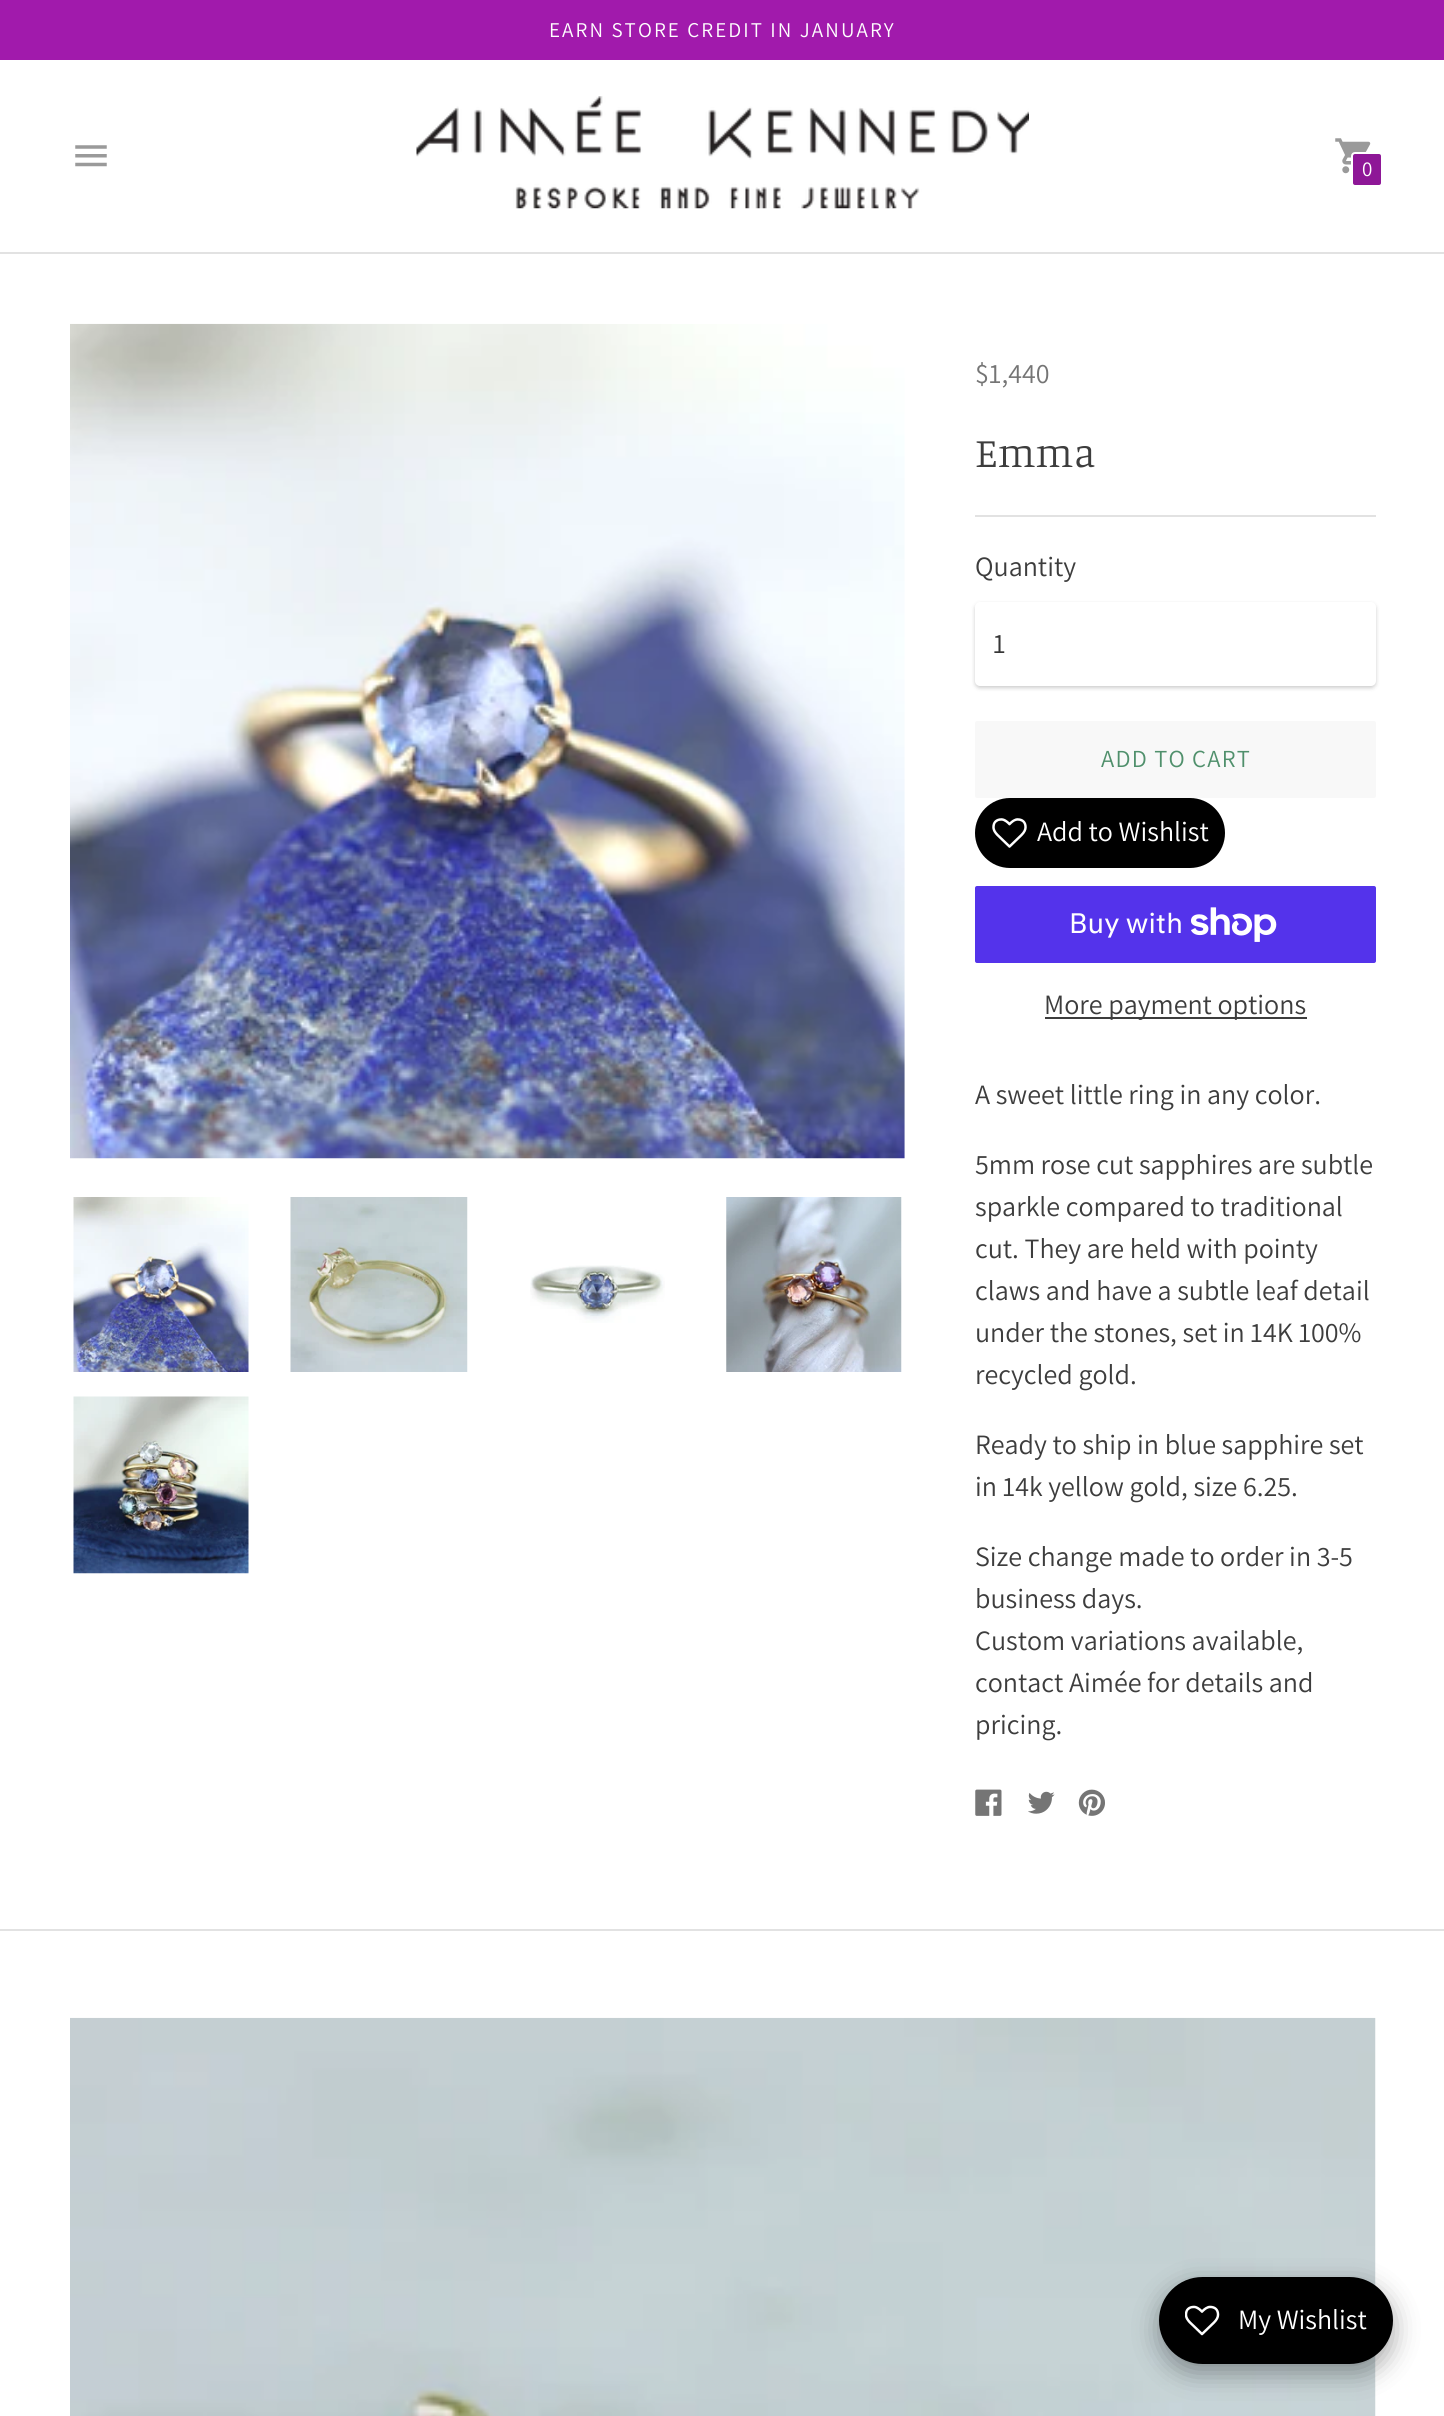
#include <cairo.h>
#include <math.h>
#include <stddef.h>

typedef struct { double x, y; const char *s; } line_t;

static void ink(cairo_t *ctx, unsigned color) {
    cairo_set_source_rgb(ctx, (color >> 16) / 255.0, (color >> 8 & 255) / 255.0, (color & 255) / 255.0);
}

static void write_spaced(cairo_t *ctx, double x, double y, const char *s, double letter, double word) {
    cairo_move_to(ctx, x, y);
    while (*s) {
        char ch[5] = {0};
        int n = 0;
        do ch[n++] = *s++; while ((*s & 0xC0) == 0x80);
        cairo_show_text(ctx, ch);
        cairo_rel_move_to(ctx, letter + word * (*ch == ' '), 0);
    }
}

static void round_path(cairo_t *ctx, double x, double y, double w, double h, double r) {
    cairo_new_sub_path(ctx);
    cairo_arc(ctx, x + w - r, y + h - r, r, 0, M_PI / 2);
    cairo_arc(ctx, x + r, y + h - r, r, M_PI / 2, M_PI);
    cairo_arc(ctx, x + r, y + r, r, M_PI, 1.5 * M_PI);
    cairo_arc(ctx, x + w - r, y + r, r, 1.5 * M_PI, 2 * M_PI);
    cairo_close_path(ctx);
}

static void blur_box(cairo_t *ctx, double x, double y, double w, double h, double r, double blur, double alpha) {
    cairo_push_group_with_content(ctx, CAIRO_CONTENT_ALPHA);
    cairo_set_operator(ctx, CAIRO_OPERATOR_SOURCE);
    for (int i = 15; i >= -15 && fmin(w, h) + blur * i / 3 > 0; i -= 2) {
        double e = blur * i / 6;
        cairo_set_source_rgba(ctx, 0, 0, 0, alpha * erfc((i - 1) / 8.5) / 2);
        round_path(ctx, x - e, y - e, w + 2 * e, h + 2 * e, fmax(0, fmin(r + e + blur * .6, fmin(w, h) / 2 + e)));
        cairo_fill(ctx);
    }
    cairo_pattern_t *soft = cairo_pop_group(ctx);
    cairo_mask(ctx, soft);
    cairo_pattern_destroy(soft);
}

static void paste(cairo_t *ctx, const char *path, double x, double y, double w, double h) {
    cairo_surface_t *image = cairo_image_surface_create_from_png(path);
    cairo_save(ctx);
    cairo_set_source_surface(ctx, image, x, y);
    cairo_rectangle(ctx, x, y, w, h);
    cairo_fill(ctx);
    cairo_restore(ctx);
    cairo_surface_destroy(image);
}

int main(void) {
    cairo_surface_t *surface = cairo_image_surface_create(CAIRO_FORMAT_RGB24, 1444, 2416);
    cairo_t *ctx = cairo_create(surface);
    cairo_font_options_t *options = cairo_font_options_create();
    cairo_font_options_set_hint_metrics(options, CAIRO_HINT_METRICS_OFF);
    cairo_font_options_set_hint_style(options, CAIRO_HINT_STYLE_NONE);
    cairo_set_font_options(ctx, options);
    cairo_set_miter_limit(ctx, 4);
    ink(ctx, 0xFFFFFF);
    cairo_paint(ctx);
    ink(ctx, 0xA11AAC);
    cairo_rectangle(ctx, 0, 0, 1444, 60);
    cairo_fill(ctx);
    cairo_select_font_face(ctx, "Assistant", CAIRO_FONT_SLANT_NORMAL, CAIRO_FONT_WEIGHT_NORMAL);
    cairo_set_font_size(ctx, 21);
    ink(ctx, 0xFFFFFF);
    write_spaced(ctx, 549, 37, "EARN STORE CREDIT IN JANUARY", 2.1, 0);
    ink(ctx, 0xE2E2E2);
    cairo_rectangle(ctx, 0, 252, 1444, 2);
    cairo_fill(ctx);
    paste(ctx, "media/1.png", 75, 145, 32, 22);
    paste(ctx, "media/2.png", 416, 96, 613, 113);
    paste(ctx, "media/3.png", 1335, 138, 36, 36);
    ink(ctx, 0x8E1797);
    round_path(ctx, 1352, 153, 30, 33, 3);
    cairo_fill_preserve(ctx);
    ink(ctx, 0xFFFFFF);
    cairo_stroke(ctx);
    cairo_move_to(ctx, 1362, 176);
    cairo_show_text(ctx, "0");
    ink(ctx, 0xE2E2E2);
    cairo_rectangle(ctx, 0, 1929, 1444, 2);
    cairo_fill(ctx);
    paste(ctx, "media/4.png", 70, 323, 835, 836);
    paste(ctx, "media/5.png", 73, 1197, 176, 175);
    paste(ctx, "media/6.png", 290, 1197, 178, 175);
    paste(ctx, "media/7.png", 530, 1265, 135, 58);
    paste(ctx, "media/8.png", 726, 1197, 176, 175);
    paste(ctx, "media/9.png", 73, 1396, 176, 178);
    cairo_rectangle(ctx, 975, 515, 401, 2);
    cairo_fill(ctx);
    cairo_set_font_size(ctx, 28);
    ink(ctx, 0x757575);
    cairo_move_to(ctx, 975, 383);
    cairo_show_text(ctx, "$1,440");
    cairo_select_font_face(ctx, "Manuale Light", CAIRO_FONT_SLANT_NORMAL, CAIRO_FONT_WEIGHT_NORMAL);
    cairo_set_font_size(ctx, 42);
    ink(ctx, 0x3D3D3D);
    cairo_move_to(ctx, 975, 467);
    cairo_show_text(ctx, "Emma");
    cairo_select_font_face(ctx, "Assistant", CAIRO_FONT_SLANT_NORMAL, CAIRO_FONT_WEIGHT_NORMAL);
    cairo_set_font_size(ctx, 28);
    cairo_move_to(ctx, 975, 576);
    cairo_show_text(ctx, "Quantity");
    ink(ctx, 0x000000);
    blur_box(ctx, 975, 604, 401, 84, 5, 2, 0.2);
    ink(ctx, 0xFFFFFF);
    round_path(ctx, 975, 602, 401, 84, 5);
    cairo_fill(ctx);
    ink(ctx, 0x363636);
    cairo_move_to(ctx, 993, 653);
    cairo_show_text(ctx, "1");
    ink(ctx, 0xF8F8F8);
    round_path(ctx, 975, 721, 401, 77, 2);
    cairo_fill(ctx);
    cairo_set_font_size(ctx, 24.5);
    ink(ctx, 0x50906C);
    write_spaced(ctx, 1101, 767, "ADD TO CART", 1.25, 0);
    ink(ctx, 0x000000);
    round_path(ctx, 975, 798, 250, 70, 35);
    cairo_fill(ctx);
    paste(ctx, "media/10.png", 992, 818, 35, 30);
    cairo_set_font_size(ctx, 28);
    ink(ctx, 0xFFFFFF);
    cairo_move_to(ctx, 1037, 841);
    cairo_show_text(ctx, "Add to Wishlist");
    ink(ctx, 0x5433EB);
    round_path(ctx, 975, 886, 401, 77, 2);
    cairo_fill(ctx);
    cairo_select_font_face(ctx, "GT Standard", CAIRO_FONT_SLANT_NORMAL, CAIRO_FONT_WEIGHT_NORMAL);
    ink(ctx, 0xFFFFFF);
    cairo_move_to(ctx, 1069, 933);
    cairo_show_text(ctx, "Buy with");
    paste(ctx, "media/11.png", 1191, 907, 86, 35);
    ink(ctx, 0x3D3D3D);
    cairo_rectangle(ctx, 1045, 1017, 262, 2);
    cairo_fill(ctx);
    cairo_select_font_face(ctx, "Assistant", CAIRO_FONT_SLANT_NORMAL, CAIRO_FONT_WEIGHT_NORMAL);
    {
        static const line_t items[] = {
            {1044, 1014, "More payment options"},
            {975, 1104, "A sweet little ring in any color."},
            {975, 1174, "5mm rose cut sapphires are subtle"},
            {975, 1216, "sparkle compared to traditional"},
            {975, 1258, "cut. They are held with pointy"},
            {975, 1300, "claws and have a subtle leaf detail"},
            {975, 1342, "under the stones, set in 14K 100%"},
            {975, 1384, "recycled gold."},
            {975, 1454, "Ready to ship in blue sapphire set"},
            {975, 1496, "in 14k yellow gold, size 6.25."},
            {975, 1566, "Size change made to order in 3-5"},
            {975, 1608, "business days."},
            {975, 1650, "Custom variations available,"},
            {975, 1692, "contact Aimée for details and"},
            {975, 1734, "pricing."},
        };
        for (size_t i = 0; i < sizeof items / sizeof *items; i++) {
            cairo_move_to(ctx, items[i].x, items[i].y);
            cairo_show_text(ctx, items[i].s);
        }
    }
    paste(ctx, "media/12.png", 975, 1789, 27, 27);
    paste(ctx, "media/13.png", 1028, 1791, 27, 23);
    paste(ctx, "media/14.png", 1078, 1789, 27, 27);
    paste(ctx, "media/15.png", 70, 2017, 1306, 399);
    ink(ctx, 0x000000);
    blur_box(ctx, 1159, 2286, 234, 87, 43.5, 13, 0.35);
    ink(ctx, 0x000000);
    round_path(ctx, 1159, 2277, 234, 87, 43.5);
    cairo_fill(ctx);
    paste(ctx, "media/16.png", 1185, 2305, 35, 31);
    ink(ctx, 0xFFFFFF);
    cairo_move_to(ctx, 1238, 2329);
    cairo_show_text(ctx, "My Wishlist");
    cairo_surface_write_to_png(surface, "image.png");
    cairo_font_options_destroy(options);
    cairo_destroy(ctx);
    cairo_surface_destroy(surface);
    return 0;
}
